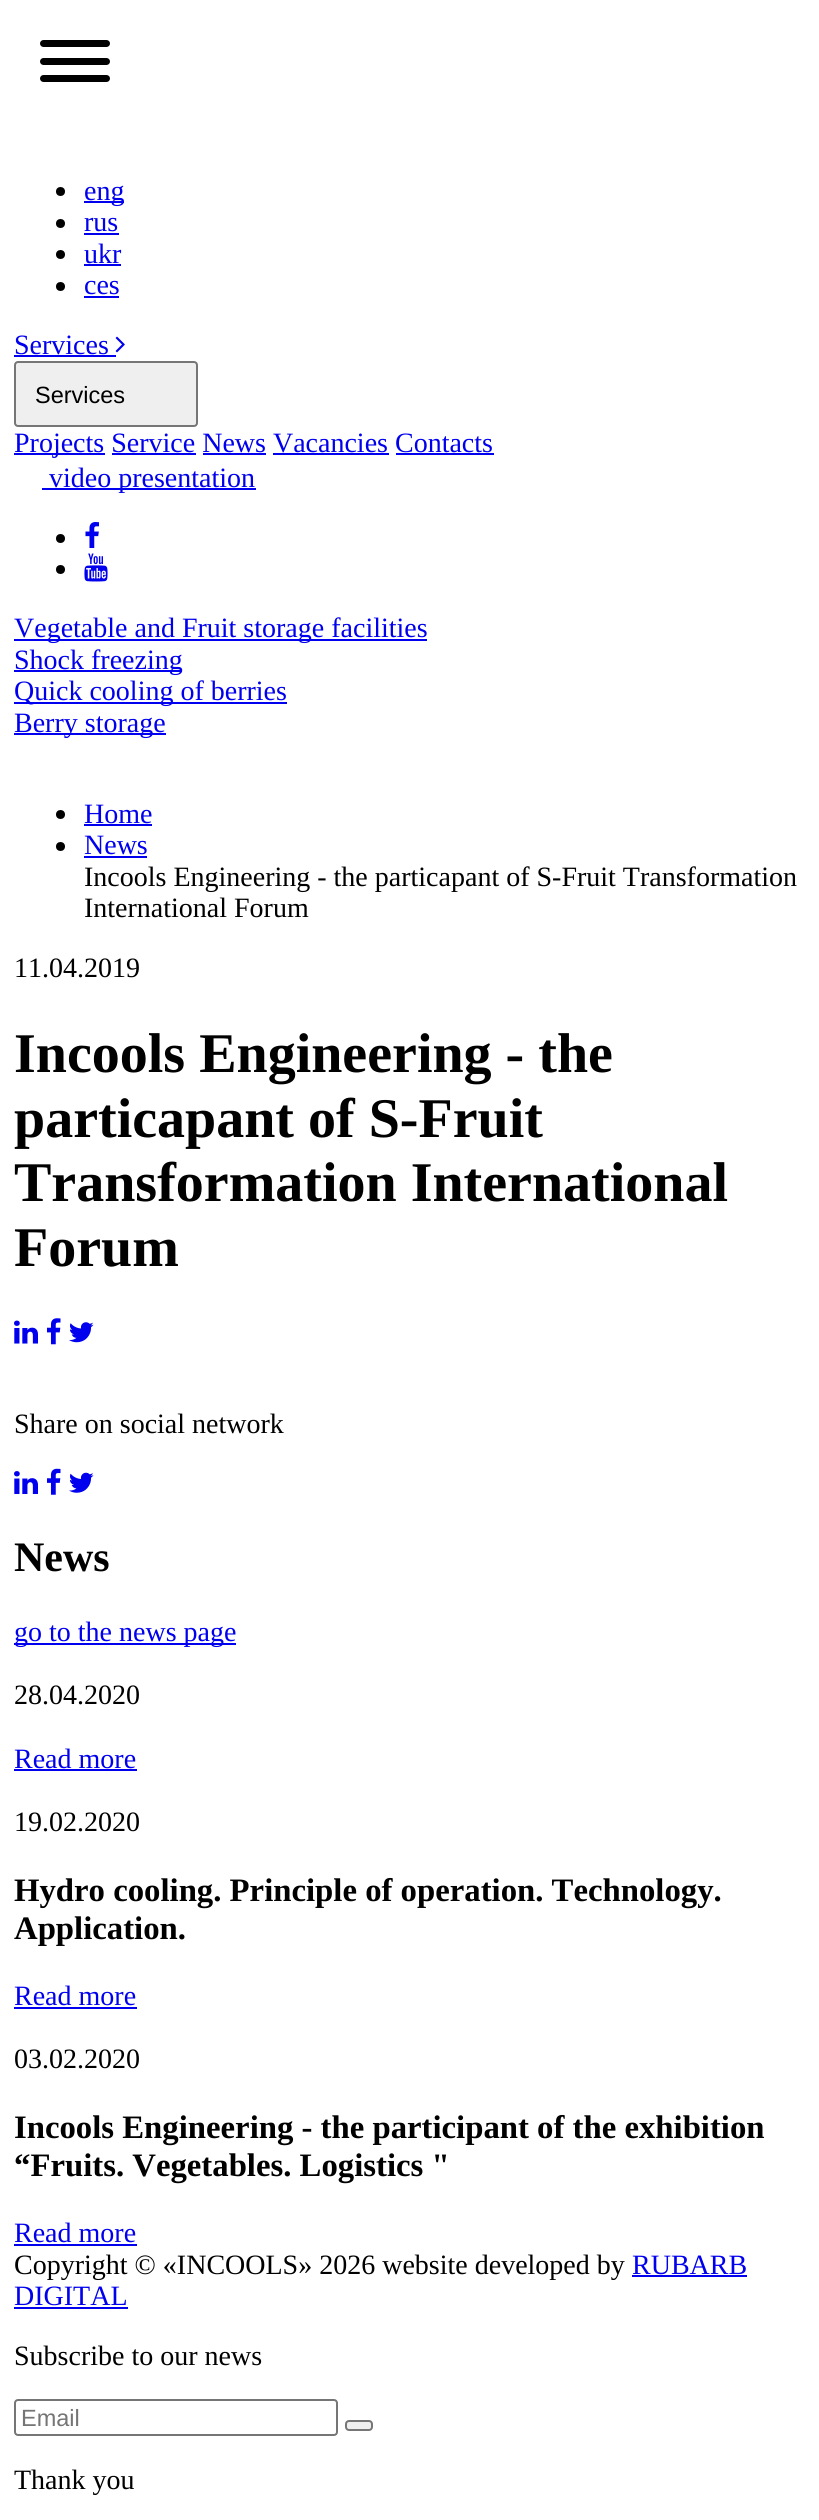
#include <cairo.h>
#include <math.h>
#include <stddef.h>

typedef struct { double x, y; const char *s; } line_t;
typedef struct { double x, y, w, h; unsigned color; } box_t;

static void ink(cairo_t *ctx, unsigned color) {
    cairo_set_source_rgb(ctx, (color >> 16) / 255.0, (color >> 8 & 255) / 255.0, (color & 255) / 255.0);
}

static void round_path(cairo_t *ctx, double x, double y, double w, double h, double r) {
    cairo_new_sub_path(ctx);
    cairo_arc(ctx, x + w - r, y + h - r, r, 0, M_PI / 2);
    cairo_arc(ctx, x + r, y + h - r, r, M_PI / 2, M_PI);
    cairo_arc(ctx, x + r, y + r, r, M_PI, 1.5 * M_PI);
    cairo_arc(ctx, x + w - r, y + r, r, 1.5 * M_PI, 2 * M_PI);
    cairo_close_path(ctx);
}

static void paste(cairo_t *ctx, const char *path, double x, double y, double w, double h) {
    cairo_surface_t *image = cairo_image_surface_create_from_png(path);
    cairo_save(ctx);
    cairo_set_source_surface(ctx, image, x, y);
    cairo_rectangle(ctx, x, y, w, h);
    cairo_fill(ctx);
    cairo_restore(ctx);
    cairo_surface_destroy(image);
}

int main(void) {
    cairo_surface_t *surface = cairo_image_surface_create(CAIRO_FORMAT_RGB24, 819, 2520);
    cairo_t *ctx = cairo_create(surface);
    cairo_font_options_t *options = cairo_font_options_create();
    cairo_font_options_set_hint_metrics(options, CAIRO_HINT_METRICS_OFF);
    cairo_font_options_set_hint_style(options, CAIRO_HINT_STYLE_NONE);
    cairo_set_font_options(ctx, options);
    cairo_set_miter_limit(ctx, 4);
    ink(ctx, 0xFFFFFF);
    cairo_paint(ctx);
    ink(ctx, 0x000000);
    round_path(ctx, 40, 75, 70, 7, 3.5);
    cairo_fill(ctx);
    round_path(ctx, 40, 40, 70, 7, 3.5);
    cairo_fill(ctx);
    round_path(ctx, 40, 58, 70, 7, 3.5);
    cairo_fill(ctx);
    cairo_arc(ctx, 60.5, 191.5, 4.5, 0, 2 * M_PI);
    cairo_fill(ctx);
    ink(ctx, 0x0000EE);
    cairo_rectangle(ctx, 84, 201, 40, 2);
    cairo_fill(ctx);
    cairo_select_font_face(ctx, "Liberation Serif", CAIRO_FONT_SLANT_NORMAL, CAIRO_FONT_WEIGHT_NORMAL);
    cairo_set_font_size(ctx, 28);
    cairo_move_to(ctx, 84, 200);
    cairo_show_text(ctx, "eng");
    ink(ctx, 0x000000);
    cairo_new_path(ctx);
    cairo_arc(ctx, 60.5, 223.5, 4.5, 0, 2 * M_PI);
    cairo_fill(ctx);
    ink(ctx, 0x0000EE);
    cairo_move_to(ctx, 84, 231);
    cairo_show_text(ctx, "rus");
    cairo_rectangle(ctx, 84, 233, 35, 2);
    cairo_fill(ctx);
    ink(ctx, 0x000000);
    cairo_arc(ctx, 60.5, 254.5, 4.5, 0, 2 * M_PI);
    cairo_fill(ctx);
    ink(ctx, 0x0000EE);
    cairo_move_to(ctx, 84, 263);
    cairo_show_text(ctx, "ukr");
    cairo_rectangle(ctx, 84, 264, 37, 2);
    cairo_fill(ctx);
    ink(ctx, 0x000000);
    cairo_arc(ctx, 60.5, 286.5, 4.5, 0, 2 * M_PI);
    cairo_fill(ctx);
    ink(ctx, 0x0000EE);
    cairo_move_to(ctx, 84, 294);
    cairo_show_text(ctx, "ces");
    cairo_rectangle(ctx, 84, 296, 35, 2);
    cairo_fill(ctx);
    cairo_move_to(ctx, 14, 354);
    cairo_show_text(ctx, "Services");
    cairo_rectangle(ctx, 14, 355, 102, 2);
    cairo_fill(ctx);
    paste(ctx, "media/1.png", 115, 336, 10, 17);
    ink(ctx, 0xEFEFEF);
    round_path(ctx, 15, 362, 182, 64, 3);
    cairo_fill_preserve(ctx);
    ink(ctx, 0x767676);
    cairo_stroke(ctx);
    cairo_select_font_face(ctx, "Liberation Sans", CAIRO_FONT_SLANT_NORMAL, CAIRO_FONT_WEIGHT_NORMAL);
    cairo_set_font_size(ctx, 23.5);
    ink(ctx, 0x000000);
    cairo_move_to(ctx, 35, 403);
    cairo_show_text(ctx, "Services");
    ink(ctx, 0x0000EE);
    cairo_rectangle(ctx, 14, 453, 91, 2);
    cairo_fill(ctx);
    cairo_select_font_face(ctx, "Liberation Serif", CAIRO_FONT_SLANT_NORMAL, CAIRO_FONT_WEIGHT_NORMAL);
    cairo_set_font_size(ctx, 28);
    cairo_move_to(ctx, 14, 452);
    cairo_show_text(ctx, "Projects Service News Vacancies Contacts");
    {
        static const box_t items[] = {
            {112, 453, 84, 2, 0x0000EE},
            {203, 453, 63, 2, 0x0000EE},
            {273, 453, 116, 2, 0x0000EE},
            {396, 453, 98, 2, 0x0000EE},
            {42, 488, 214, 2, 0x0000EE},
        };
        for (size_t i = 0; i < sizeof items / sizeof *items; i++) {
            ink(ctx, items[i].color);
            cairo_rectangle(ctx, items[i].x, items[i].y, items[i].w, items[i].h);
            cairo_fill(ctx);
        }
    }
    cairo_move_to(ctx, 49, 487);
    cairo_show_text(ctx, "video presentation");
    ink(ctx, 0x000000);
    cairo_new_path(ctx);
    cairo_arc(ctx, 60.5, 538.5, 4.5, 0, 2 * M_PI);
    cairo_fill(ctx);
    paste(ctx, "media/2.png", 85, 522, 14, 26);
    cairo_arc(ctx, 60.5, 569.5, 4.5, 0, 2 * M_PI);
    cairo_fill(ctx);
    paste(ctx, "media/3.png", 84, 553, 24, 29);
    ink(ctx, 0x0000EE);
    cairo_rectangle(ctx, 14, 639, 413, 2);
    cairo_fill(ctx);
    cairo_move_to(ctx, 14, 637);
    cairo_show_text(ctx, "Vegetable and Fruit storage facilities");
    cairo_rectangle(ctx, 14, 670, 168, 2);
    cairo_fill(ctx);
    cairo_move_to(ctx, 14, 669);
    cairo_show_text(ctx, "Shock freezing");
    cairo_rectangle(ctx, 14, 702, 273, 2);
    cairo_fill(ctx);
    cairo_move_to(ctx, 14, 700);
    cairo_show_text(ctx, "Quick cooling of berries");
    cairo_rectangle(ctx, 14, 733, 152, 2);
    cairo_fill(ctx);
    cairo_move_to(ctx, 14, 732);
    cairo_show_text(ctx, "Berry storage");
    ink(ctx, 0x000000);
    cairo_new_path(ctx);
    cairo_arc(ctx, 60.5, 814.5, 4.5, 0, 2 * M_PI);
    cairo_fill(ctx);
    ink(ctx, 0x0000EE);
    cairo_move_to(ctx, 84, 823);
    cairo_show_text(ctx, "Home");
    cairo_rectangle(ctx, 84, 824, 68, 2);
    cairo_fill(ctx);
    ink(ctx, 0x000000);
    cairo_arc(ctx, 60.5, 846.5, 4.5, 0, 2 * M_PI);
    cairo_fill(ctx);
    ink(ctx, 0x0000EE);
    cairo_move_to(ctx, 84, 854);
    cairo_show_text(ctx, "News");
    cairo_rectangle(ctx, 84, 856, 63, 2);
    cairo_fill(ctx);
    ink(ctx, 0x000000);
    {
        static const line_t items[] = {
            {84, 886, "Incools Engineering - the particapant of S-Fruit Transformation"},
            {84, 917, "International Forum"},
            {14, 977, "11.04.2019"},
        };
        for (size_t i = 0; i < sizeof items / sizeof *items; i++) {
            cairo_move_to(ctx, items[i].x, items[i].y);
            cairo_show_text(ctx, items[i].s);
        }
    }
    cairo_select_font_face(ctx, "Liberation Serif", CAIRO_FONT_SLANT_NORMAL, CAIRO_FONT_WEIGHT_BOLD);
    cairo_set_font_size(ctx, 56);
    {
        static const line_t items[] = {
            {14, 1072, "Incools Engineering - the"},
            {14, 1137, "particapant of S-Fruit"},
            {14, 1201, "Transformation International"},
            {14, 1266, "Forum"},
        };
        for (size_t i = 0; i < sizeof items / sizeof *items; i++) {
            cairo_move_to(ctx, items[i].x, items[i].y);
            cairo_show_text(ctx, items[i].s);
        }
    }
    paste(ctx, "media/4.png", 14, 1320, 24, 24);
    paste(ctx, "media/5.png", 47, 1318, 14, 27);
    paste(ctx, "media/6.png", 69, 1322, 25, 21);
    cairo_select_font_face(ctx, "Liberation Serif", CAIRO_FONT_SLANT_NORMAL, CAIRO_FONT_WEIGHT_NORMAL);
    cairo_set_font_size(ctx, 28);
    cairo_move_to(ctx, 14, 1433);
    cairo_show_text(ctx, "Share on social network");
    paste(ctx, "media/7.png", 14, 1471, 24, 23);
    paste(ctx, "media/8.png", 47, 1468, 14, 27);
    paste(ctx, "media/9.png", 69, 1472, 25, 21);
    cairo_select_font_face(ctx, "Liberation Serif", CAIRO_FONT_SLANT_NORMAL, CAIRO_FONT_WEIGHT_BOLD);
    cairo_set_font_size(ctx, 42);
    cairo_move_to(ctx, 14, 1571);
    cairo_show_text(ctx, "News");
    ink(ctx, 0x0000EE);
    cairo_rectangle(ctx, 14, 1643, 222, 2);
    cairo_fill(ctx);
    cairo_select_font_face(ctx, "Liberation Serif", CAIRO_FONT_SLANT_NORMAL, CAIRO_FONT_WEIGHT_NORMAL);
    cairo_set_font_size(ctx, 28);
    cairo_move_to(ctx, 14, 1641);
    cairo_show_text(ctx, "go to the news page");
    ink(ctx, 0x000000);
    cairo_move_to(ctx, 14, 1704);
    cairo_show_text(ctx, "28.04.2020");
    ink(ctx, 0x0000EE);
    cairo_move_to(ctx, 14, 1768);
    cairo_show_text(ctx, "Read more");
    cairo_rectangle(ctx, 14, 1769, 123, 2);
    cairo_fill(ctx);
    ink(ctx, 0x000000);
    cairo_move_to(ctx, 14, 1831);
    cairo_show_text(ctx, "19.02.2020");
    cairo_select_font_face(ctx, "Liberation Serif", CAIRO_FONT_SLANT_NORMAL, CAIRO_FONT_WEIGHT_BOLD);
    cairo_set_font_size(ctx, 32.75);
    cairo_move_to(ctx, 14, 1901);
    cairo_show_text(ctx, "Hydro cooling. Principle of operation. Technology.");
    cairo_move_to(ctx, 14, 1939);
    cairo_show_text(ctx, "Application.");
    cairo_select_font_face(ctx, "Liberation Serif", CAIRO_FONT_SLANT_NORMAL, CAIRO_FONT_WEIGHT_NORMAL);
    cairo_set_font_size(ctx, 28);
    ink(ctx, 0x0000EE);
    cairo_move_to(ctx, 14, 2005);
    cairo_show_text(ctx, "Read more");
    cairo_rectangle(ctx, 14, 2007, 123, 2);
    cairo_fill(ctx);
    ink(ctx, 0x000000);
    cairo_move_to(ctx, 14, 2068);
    cairo_show_text(ctx, "03.02.2020");
    cairo_select_font_face(ctx, "Liberation Serif", CAIRO_FONT_SLANT_NORMAL, CAIRO_FONT_WEIGHT_BOLD);
    cairo_set_font_size(ctx, 32.75);
    cairo_move_to(ctx, 14, 2138);
    cairo_show_text(ctx, "Incools Engineering - the participant of the exhibition");
    cairo_move_to(ctx, 14, 2176);
    cairo_show_text(ctx, "“Fruits. Vegetables. Logistics \"");
    cairo_select_font_face(ctx, "Liberation Serif", CAIRO_FONT_SLANT_NORMAL, CAIRO_FONT_WEIGHT_NORMAL);
    cairo_set_font_size(ctx, 28);
    ink(ctx, 0x0000EE);
    cairo_move_to(ctx, 14, 2242);
    cairo_show_text(ctx, "Read more");
    cairo_rectangle(ctx, 14, 2244, 123, 2);
    cairo_fill(ctx);
    ink(ctx, 0x000000);
    cairo_move_to(ctx, 14, 2274);
    cairo_show_text(ctx, "Copyright © «INCOOLS» 2026 website developed by");
    ink(ctx, 0x0000EE);
    cairo_move_to(ctx, 632, 2274);
    cairo_show_text(ctx, "RUBARB");
    cairo_rectangle(ctx, 632, 2275, 115, 2);
    cairo_fill(ctx);
    cairo_move_to(ctx, 14, 2305);
    cairo_show_text(ctx, "DIGITAL");
    cairo_rectangle(ctx, 14, 2307, 114, 2);
    cairo_fill(ctx);
    ink(ctx, 0x000000);
    cairo_move_to(ctx, 14, 2365);
    cairo_show_text(ctx, "Subscribe to our news");
    round_path(ctx, 15, 2400, 322, 35, 3);
    ink(ctx, 0x767676);
    cairo_stroke(ctx);
    cairo_select_font_face(ctx, "Liberation Sans", CAIRO_FONT_SLANT_NORMAL, CAIRO_FONT_WEIGHT_NORMAL);
    cairo_set_font_size(ctx, 23.5);
    ink(ctx, 0x757575);
    cairo_move_to(ctx, 21, 2426);
    cairo_show_text(ctx, "Email");
    ink(ctx, 0xEFEFEF);
    round_path(ctx, 346, 2421, 26, 9, 3);
    cairo_fill_preserve(ctx);
    ink(ctx, 0x767676);
    cairo_stroke(ctx);
    cairo_select_font_face(ctx, "Liberation Serif", CAIRO_FONT_SLANT_NORMAL, CAIRO_FONT_WEIGHT_NORMAL);
    cairo_set_font_size(ctx, 28);
    ink(ctx, 0x000000);
    cairo_move_to(ctx, 14, 2489);
    cairo_show_text(ctx, "Thank you");
    cairo_surface_write_to_png(surface, "image.png");
    cairo_font_options_destroy(options);
    cairo_destroy(ctx);
    cairo_surface_destroy(surface);
    return 0;
}
